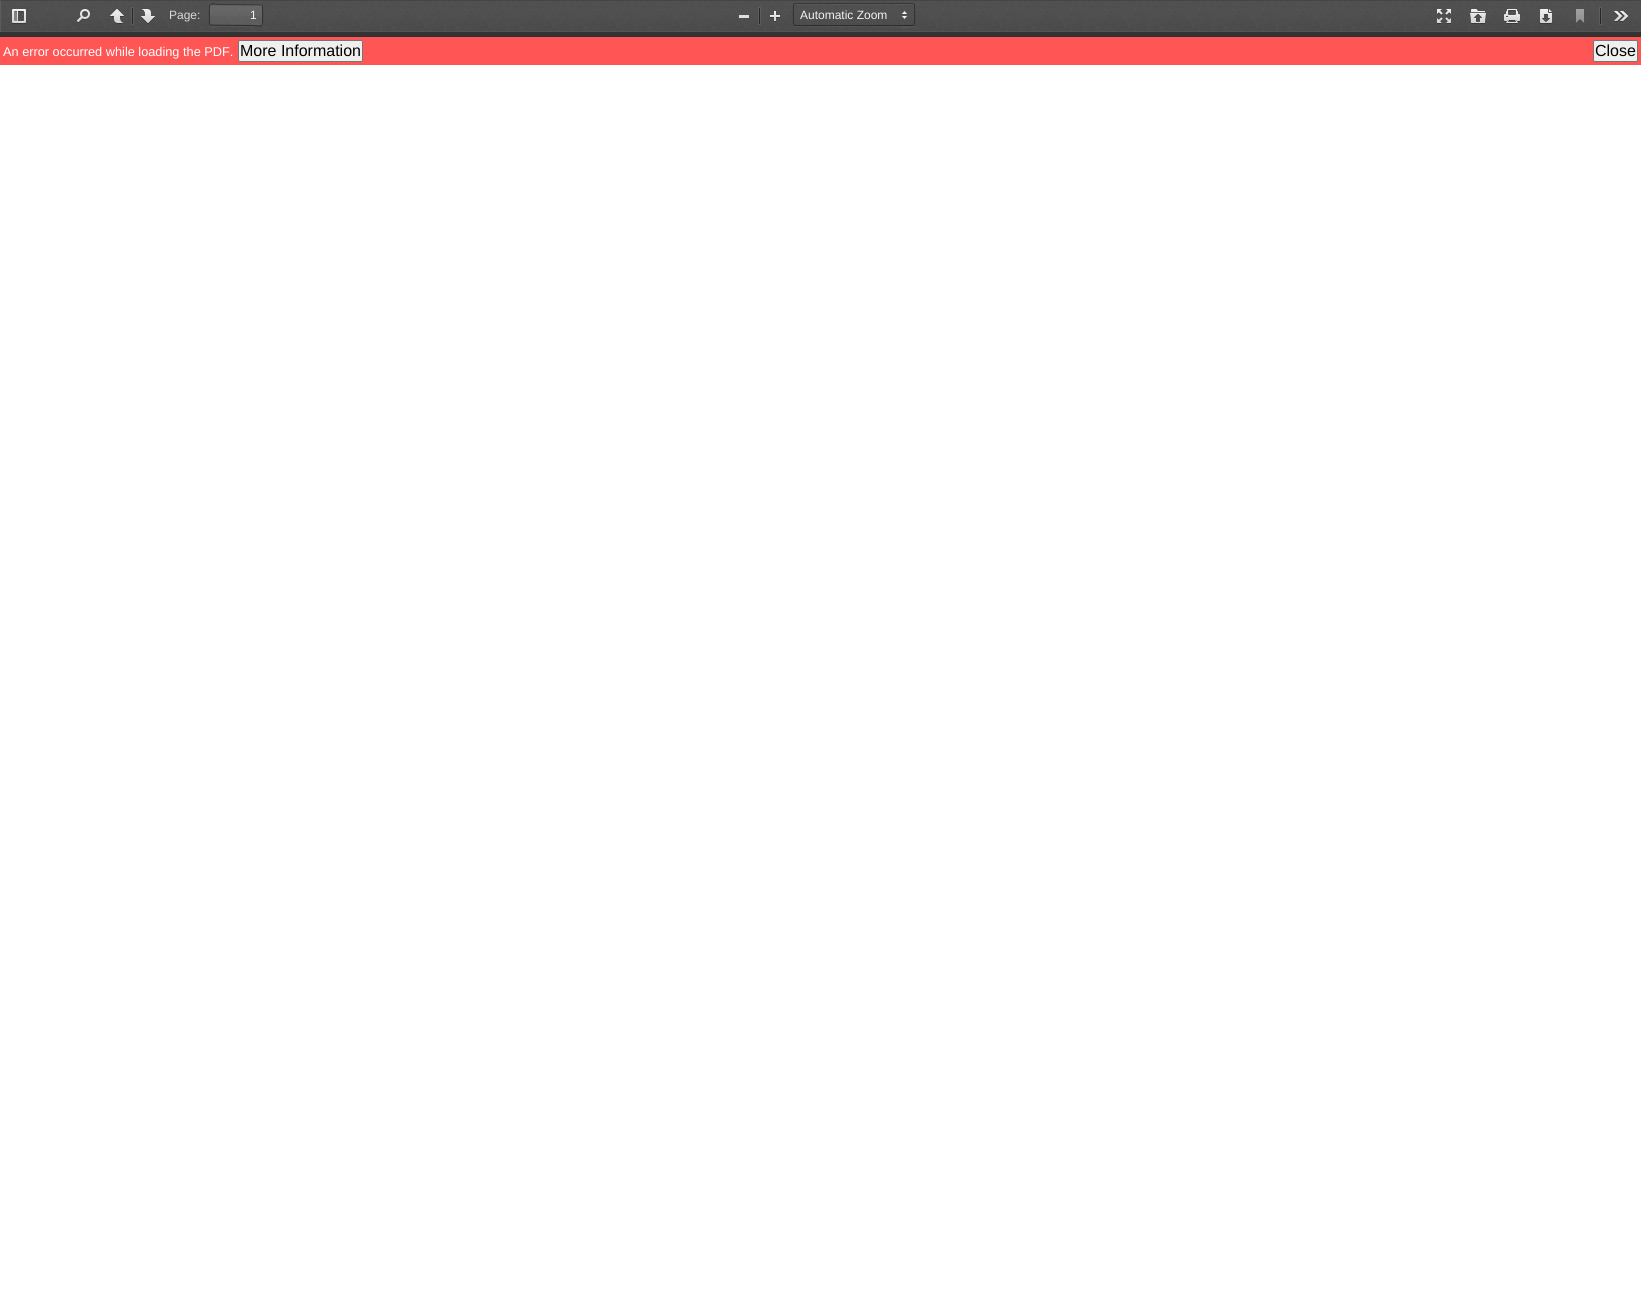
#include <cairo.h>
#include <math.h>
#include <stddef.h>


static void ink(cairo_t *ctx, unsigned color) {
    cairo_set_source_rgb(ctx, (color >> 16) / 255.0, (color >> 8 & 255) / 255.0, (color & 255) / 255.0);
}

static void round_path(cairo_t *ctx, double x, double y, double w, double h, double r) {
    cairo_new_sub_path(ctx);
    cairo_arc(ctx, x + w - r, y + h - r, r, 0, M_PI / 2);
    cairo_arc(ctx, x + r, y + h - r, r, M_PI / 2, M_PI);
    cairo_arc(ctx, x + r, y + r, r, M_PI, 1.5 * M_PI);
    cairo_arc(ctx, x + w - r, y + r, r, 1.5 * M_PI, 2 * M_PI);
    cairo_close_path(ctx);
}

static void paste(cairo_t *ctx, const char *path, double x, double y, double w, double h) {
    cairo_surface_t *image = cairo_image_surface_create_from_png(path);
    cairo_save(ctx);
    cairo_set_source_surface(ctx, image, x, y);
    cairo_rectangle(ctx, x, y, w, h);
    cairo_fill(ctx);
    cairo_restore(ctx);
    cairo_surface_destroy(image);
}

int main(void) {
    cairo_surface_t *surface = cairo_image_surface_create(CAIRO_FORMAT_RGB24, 1641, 1298);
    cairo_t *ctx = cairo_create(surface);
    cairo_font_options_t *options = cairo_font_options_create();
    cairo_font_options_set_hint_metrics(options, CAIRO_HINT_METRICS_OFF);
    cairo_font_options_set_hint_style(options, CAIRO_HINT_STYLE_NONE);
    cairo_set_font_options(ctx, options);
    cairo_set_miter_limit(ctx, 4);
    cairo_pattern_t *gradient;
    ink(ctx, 0xFFFFFF);
    cairo_paint(ctx);
    paste(ctx, "media/1.png", 38, 17, 1601, 15);
    paste(ctx, "media/2.png", 0, 0, 1641, 32);
    cairo_set_source_rgba(ctx, 1, 1, 1, 0.05);
    cairo_rectangle(ctx, 0, 31, 1641, 1);
    cairo_fill(ctx);
    cairo_set_source_rgba(ctx, 0, 0, 0, 0.15);
    cairo_rectangle(ctx, 0, 0, 1641, 1);
    cairo_fill(ctx);
    cairo_set_source_rgba(ctx, 1, 1, 1, 0.08);
    cairo_rectangle(ctx, 0, 0, 1, 32);
    cairo_fill(ctx);
    paste(ctx, "media/3.png", 12, 9, 14, 15);
    paste(ctx, "media/4.png", 77, 9, 13, 14);
    paste(ctx, "media/5.png", 110, 9, 14, 15);
    cairo_rectangle(ctx, 131.5, 7.5, 2, 17);
    cairo_set_line_width(ctx, 1);
    cairo_stroke(ctx);
    cairo_set_source_rgba(ctx, 0, 0, 0, 0.5);
    cairo_rectangle(ctx, 132, 8, 1, 16);
    cairo_fill(ctx);
    paste(ctx, "media/6.png", 141, 9, 14, 15);
    cairo_select_font_face(ctx, "Liberation Sans", CAIRO_FONT_SLANT_NORMAL, CAIRO_FONT_WEIGHT_NORMAL);
    cairo_set_font_size(ctx, 12);
    ink(ctx, 0xD9D9D9);
    cairo_move_to(ctx, 169, 19);
    cairo_show_text(ctx, "Page:");
    cairo_set_source_rgba(ctx, 1, 1, 1, 0.05);
    cairo_new_path(ctx);
    cairo_move_to(ctx, 209, 24);
    cairo_curve_to(ctx, 209, 29, 215, 27, 219, 27);
    cairo_line_to(ctx, 253, 27);
    cairo_curve_to(ctx, 257, 27, 263, 29, 263, 24);
    cairo_line_to(ctx, 262, 26);
    cairo_line_to(ctx, 210, 26);
    cairo_close_path(ctx);
    cairo_fill(ctx);
    cairo_set_source_rgba(ctx, 1, 1, 1, 0.09);
    cairo_rectangle(ctx, 210, 5, 52, 20);
    cairo_fill(ctx);
    gradient = cairo_pattern_create_linear(236, 5, 236, 25);
    cairo_pattern_add_color_stop_rgba(gradient, 0, 1, 1, 1, 0.05);
    cairo_pattern_add_color_stop_rgba(gradient, 1, 1, 1, 1, 0);
    cairo_set_source(ctx, gradient);
    cairo_pattern_destroy(gradient);
    cairo_rectangle(ctx, 210, 5, 52, 11);
    cairo_fill(ctx);
    cairo_set_source_rgba(ctx, 0, 0, 0, 0.05);
    cairo_new_path(ctx);
    cairo_move_to(ctx, 211, 6);
    cairo_line_to(ctx, 261, 6);
    cairo_curve_to(ctx, 262, 6, 262, 6, 262, 7);
    cairo_curve_to(ctx, 262, 3, 257, 5, 253, 5);
    cairo_line_to(ctx, 219, 5);
    cairo_curve_to(ctx, 215, 5, 210, 3, 210, 7);
    cairo_curve_to(ctx, 210, 6, 210, 6, 211, 6);
    cairo_close_path(ctx);
    cairo_fill(ctx);
    cairo_new_path(ctx);
    cairo_move_to(ctx, 210, 5);
    cairo_curve_to(ctx, 212, 2.5, 216, 4.5, 219.5, 4.5);
    cairo_line_to(ctx, 262, 5);
    cairo_set_source_rgba(ctx, 0, 0, 0, 0.32);
    cairo_stroke(ctx);
    cairo_new_path(ctx);
    cairo_move_to(ctx, 262, 5);
    cairo_curve_to(ctx, 263, 5.5, 263, 24.5, 262, 25);
    cairo_set_source_rgba(ctx, 0, 0, 0, 0.38);
    cairo_stroke(ctx);
    cairo_new_path(ctx);
    cairo_move_to(ctx, 262, 25);
    cairo_curve_to(ctx, 260, 27.5, 256, 25.5, 252.5, 25.5);
    cairo_line_to(ctx, 210, 25);
    cairo_set_source_rgba(ctx, 0, 0, 0, 0.42);
    cairo_stroke(ctx);
    cairo_new_path(ctx);
    cairo_move_to(ctx, 210, 25);
    cairo_curve_to(ctx, 209, 24.5, 209, 5.5, 210, 5);
    cairo_set_source_rgba(ctx, 0, 0, 0, 0.38);
    cairo_stroke(ctx);
    ink(ctx, 0xF2F2F2);
    cairo_move_to(ctx, 250, 19);
    cairo_show_text(ctx, "1");
    cairo_set_source_rgba(ctx, 1, 1, 1, 0.82);
    cairo_rectangle(ctx, 739, 15, 10, 3);
    cairo_fill(ctx);
    cairo_rectangle(ctx, 758.5, 7.5, 2, 17);
    cairo_set_source_rgba(ctx, 1, 1, 1, 0.08);
    cairo_stroke(ctx);
    cairo_set_source_rgba(ctx, 0, 0, 0, 0.5);
    cairo_rectangle(ctx, 759, 8, 1, 16);
    cairo_fill(ctx);
    paste(ctx, "media/7.png", 770, 11, 10, 11);
    cairo_set_source_rgba(ctx, 1, 1, 1, 0.05);
    cairo_new_path(ctx);
    cairo_move_to(ctx, 793, 24);
    cairo_curve_to(ctx, 793, 25, 793, 26, 794, 27);
    cairo_line_to(ctx, 893, 27);
    cairo_curve_to(ctx, 899, 27, 915, 31, 915, 24);
    cairo_curve_to(ctx, 915, 25, 914, 26, 913, 26);
    cairo_line_to(ctx, 795, 26);
    cairo_curve_to(ctx, 794, 26, 793, 25, 793, 24);
    cairo_close_path(ctx);
    cairo_fill(ctx);
    paste(ctx, "media/8.png", 902, 11, 5, 8);
    cairo_new_path(ctx);
    cairo_move_to(ctx, 795, 5);
    cairo_line_to(ctx, 914, 5);
    cairo_line_to(ctx, 914, 6);
    cairo_curve_to(ctx, 914, 5, 914, 4, 913, 4);
    cairo_line_to(ctx, 795, 4);
    cairo_line_to(ctx, 794, 6);
    cairo_curve_to(ctx, 794, 5, 794, 5, 795, 5);
    cairo_close_path(ctx);
    cairo_fill(ctx);
    cairo_new_path(ctx);
    cairo_move_to(ctx, 794, 4);
    cairo_line_to(ctx, 795, 3.5);
    cairo_line_to(ctx, 913, 3.5);
    cairo_line_to(ctx, 914, 4);
    cairo_set_source_rgba(ctx, 0, 0, 0, 0.32);
    cairo_stroke(ctx);
    cairo_new_path(ctx);
    cairo_move_to(ctx, 914, 4);
    cairo_curve_to(ctx, 915, 5, 915, 24, 914, 25);
    cairo_set_source_rgba(ctx, 0, 0, 0, 0.38);
    cairo_stroke(ctx);
    cairo_new_path(ctx);
    cairo_move_to(ctx, 914, 25);
    cairo_line_to(ctx, 913, 25.5);
    cairo_line_to(ctx, 795, 25.5);
    cairo_line_to(ctx, 794, 25);
    cairo_set_source_rgba(ctx, 0, 0, 0, 0.42);
    cairo_stroke(ctx);
    cairo_new_path(ctx);
    cairo_move_to(ctx, 794, 25);
    cairo_curve_to(ctx, 793, 24, 793, 5, 794, 4);
    cairo_set_source_rgba(ctx, 0, 0, 0, 0.38);
    cairo_stroke(ctx);
    ink(ctx, 0xF2F2F2);
    cairo_move_to(ctx, 800, 19);
    cairo_show_text(ctx, "Automatic Zoom");
    paste(ctx, "media/9.png", 1437, 9, 14, 15);
    paste(ctx, "media/10.png", 1470, 9, 16, 15);
    paste(ctx, "media/11.png", 1504, 9, 16, 15);
    paste(ctx, "media/12.png", 1540, 9, 12, 15);
    paste(ctx, "media/13.png", 1576, 9, 8, 15);
    cairo_rectangle(ctx, 1599.5, 7.5, 2, 17);
    cairo_set_source_rgba(ctx, 1, 1, 1, 0.08);
    cairo_stroke(ctx);
    cairo_set_source_rgba(ctx, 0, 0, 0, 0.5);
    cairo_rectangle(ctx, 1600, 8, 1, 16);
    cairo_fill(ctx);
    paste(ctx, "media/14.png", 1614, 11, 15, 11);
    ink(ctx, 0x333333);
    cairo_rectangle(ctx, 0, 32, 1641, 5);
    cairo_fill(ctx);
    ink(ctx, 0xFF5555);
    cairo_rectangle(ctx, 0, 37, 1641, 28);
    cairo_fill(ctx);
    cairo_set_font_size(ctx, 12.75);
    ink(ctx, 0xFFFFFF);
    cairo_move_to(ctx, 3, 56);
    cairo_show_text(ctx, "An error occurred while loading the PDF.");
    ink(ctx, 0xEFEFEF);
    round_path(ctx, 238.5, 40.5, 124, 21, 1.5);
    cairo_fill_preserve(ctx);
    ink(ctx, 0x767676);
    cairo_stroke(ctx);
    cairo_set_font_size(ctx, 16);
    ink(ctx, 0x000000);
    cairo_move_to(ctx, 240, 56);
    cairo_show_text(ctx, "More Information");
    ink(ctx, 0xEFEFEF);
    round_path(ctx, 1593.5, 40.5, 44, 21, 1.5);
    cairo_fill_preserve(ctx);
    ink(ctx, 0x767676);
    cairo_stroke(ctx);
    ink(ctx, 0x000000);
    cairo_move_to(ctx, 1595, 56);
    cairo_show_text(ctx, "Close");
    cairo_surface_write_to_png(surface, "image.png");
    cairo_font_options_destroy(options);
    cairo_destroy(ctx);
    cairo_surface_destroy(surface);
    return 0;
}
